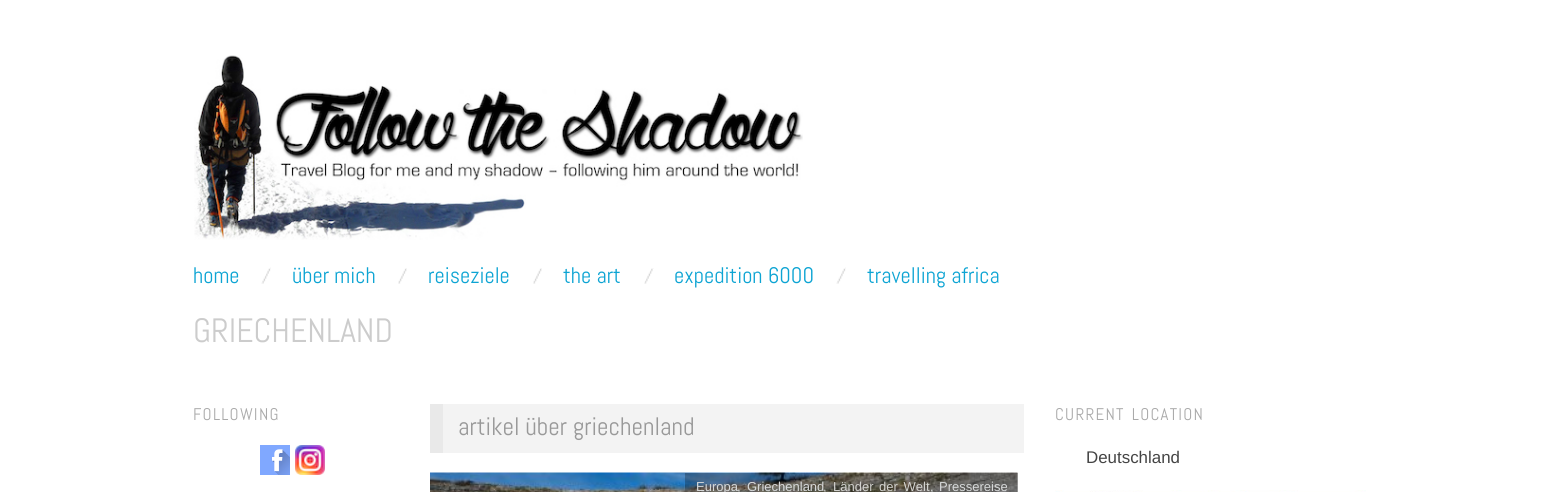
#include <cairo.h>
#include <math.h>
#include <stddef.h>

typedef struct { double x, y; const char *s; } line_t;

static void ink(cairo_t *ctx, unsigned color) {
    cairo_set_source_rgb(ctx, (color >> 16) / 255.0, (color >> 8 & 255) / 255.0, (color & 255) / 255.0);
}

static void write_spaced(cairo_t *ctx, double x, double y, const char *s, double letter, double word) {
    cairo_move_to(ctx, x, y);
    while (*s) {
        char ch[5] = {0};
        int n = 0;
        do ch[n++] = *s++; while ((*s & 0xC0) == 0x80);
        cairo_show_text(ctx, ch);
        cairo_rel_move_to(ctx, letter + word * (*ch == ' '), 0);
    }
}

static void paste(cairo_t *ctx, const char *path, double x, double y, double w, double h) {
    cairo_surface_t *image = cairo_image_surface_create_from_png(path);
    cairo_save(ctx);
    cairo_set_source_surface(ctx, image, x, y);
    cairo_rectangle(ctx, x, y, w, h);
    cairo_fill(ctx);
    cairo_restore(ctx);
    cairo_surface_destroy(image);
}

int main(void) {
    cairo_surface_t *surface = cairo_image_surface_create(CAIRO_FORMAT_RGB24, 1560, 492);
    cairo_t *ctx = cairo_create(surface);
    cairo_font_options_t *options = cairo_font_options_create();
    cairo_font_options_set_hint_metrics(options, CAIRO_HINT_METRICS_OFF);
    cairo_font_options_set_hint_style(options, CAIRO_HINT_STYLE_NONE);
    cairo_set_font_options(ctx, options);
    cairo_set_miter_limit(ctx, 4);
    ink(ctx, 0xFFFFFF);
    cairo_paint(ctx);
    paste(ctx, "media/1.png", 194, 55, 609, 185);
    cairo_select_font_face(ctx, "Abel", CAIRO_FONT_SLANT_NORMAL, CAIRO_FONT_WEIGHT_NORMAL);
    cairo_set_font_size(ctx, 22.5);
    ink(ctx, 0x0DA4D3);
    cairo_move_to(ctx, 193, 283);
    cairo_show_text(ctx, "home");
    paste(ctx, "media/2.png", 261, 267, 10, 17);
    cairo_move_to(ctx, 292, 283);
    cairo_show_text(ctx, "über mich");
    paste(ctx, "media/3.png", 398, 268, 9, 16);
    cairo_move_to(ctx, 428, 283);
    cairo_show_text(ctx, "reiseziele");
    paste(ctx, "media/3.png", 533, 268, 9, 16);
    cairo_move_to(ctx, 563, 283);
    cairo_show_text(ctx, "the art");
    paste(ctx, "media/4.png", 644, 268, 10, 16);
    cairo_move_to(ctx, 674, 283);
    cairo_show_text(ctx, "expedition 6000");
    paste(ctx, "media/2.png", 836, 267, 10, 17);
    cairo_move_to(ctx, 867, 283);
    cairo_show_text(ctx, "travelling africa");
    cairo_set_font_size(ctx, 33.75);
    ink(ctx, 0xCCCCCC);
    cairo_move_to(ctx, 193, 342);
    cairo_show_text(ctx, "GRIECHENLAND");
    ink(ctx, 0xF3F3F3);
    cairo_rectangle(ctx, 443, 404, 581, 49);
    cairo_fill(ctx);
    ink(ctx, 0xE9E9E9);
    cairo_rectangle(ctx, 430, 404, 13, 49);
    cairo_fill(ctx);
    cairo_set_font_size(ctx, 25.25);
    ink(ctx, 0x999999);
    cairo_move_to(ctx, 458, 435);
    cairo_show_text(ctx, "artikel über griechenland");
    paste(ctx, "media/5.png", 430, 472, 588, 20);
    cairo_set_source_rgba(ctx, 0, 0, 0, 0.25);
    cairo_rectangle(ctx, 685, 473, 333, 19);
    cairo_fill(ctx);
    cairo_select_font_face(ctx, "Liberation Sans", CAIRO_FONT_SLANT_NORMAL, CAIRO_FONT_WEIGHT_NORMAL);
    cairo_set_font_size(ctx, 13);
    ink(ctx, 0xD6D8D9);
    {
        static const line_t items[] = {
            {696, 491, "Europa"},
            {737, 491, ","},
            {747, 491, "Griechenland"},
        };
        for (size_t i = 0; i < sizeof items / sizeof *items; i++) {
            cairo_move_to(ctx, items[i].x, items[i].y);
            cairo_show_text(ctx, items[i].s);
        }
    }
    ink(ctx, 0xD2D2CF);
    cairo_move_to(ctx, 823, 491);
    cairo_show_text(ctx, ",");
    write_spaced(ctx, 833, 491, "Länder der Welt", 0, 2);
    ink(ctx, 0xD6D8D9);
    cairo_move_to(ctx, 930, 491);
    cairo_show_text(ctx, ",");
    cairo_move_to(ctx, 939, 491);
    cairo_show_text(ctx, "Pressereise");
    cairo_select_font_face(ctx, "Abel", CAIRO_FONT_SLANT_NORMAL, CAIRO_FONT_WEIGHT_NORMAL);
    cairo_set_font_size(ctx, 16.9);
    ink(ctx, 0xAAAAAA);
    write_spaced(ctx, 1055, 420, "CURRENT LOCATION", 1.25, 2);
    cairo_select_font_face(ctx, "Liberation Sans", CAIRO_FONT_SLANT_NORMAL, CAIRO_FONT_WEIGHT_NORMAL);
    ink(ctx, 0x444444);
    cairo_move_to(ctx, 1086, 463);
    cairo_show_text(ctx, "Deutschland");
    paste(ctx, "media/6.png", 1055, 490, 311, 2);
    cairo_select_font_face(ctx, "Abel", CAIRO_FONT_SLANT_NORMAL, CAIRO_FONT_WEIGHT_NORMAL);
    ink(ctx, 0xAAAAAA);
    write_spaced(ctx, 193, 420, "FOLLOWING", 1.25, 0);
    paste(ctx, "media/7.png", 260, 445, 30, 30);
    paste(ctx, "media/8.png", 295, 445, 30, 30);
    cairo_surface_write_to_png(surface, "image.png");
    cairo_font_options_destroy(options);
    cairo_destroy(ctx);
    cairo_surface_destroy(surface);
    return 0;
}
